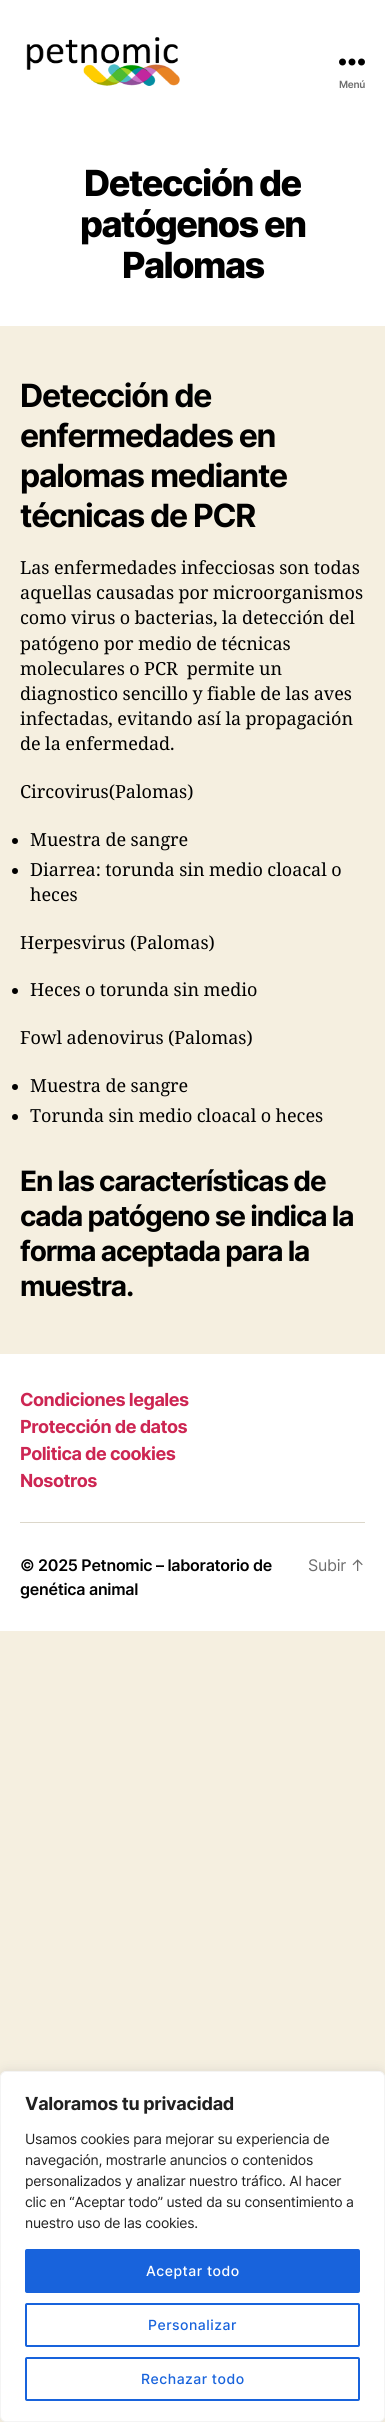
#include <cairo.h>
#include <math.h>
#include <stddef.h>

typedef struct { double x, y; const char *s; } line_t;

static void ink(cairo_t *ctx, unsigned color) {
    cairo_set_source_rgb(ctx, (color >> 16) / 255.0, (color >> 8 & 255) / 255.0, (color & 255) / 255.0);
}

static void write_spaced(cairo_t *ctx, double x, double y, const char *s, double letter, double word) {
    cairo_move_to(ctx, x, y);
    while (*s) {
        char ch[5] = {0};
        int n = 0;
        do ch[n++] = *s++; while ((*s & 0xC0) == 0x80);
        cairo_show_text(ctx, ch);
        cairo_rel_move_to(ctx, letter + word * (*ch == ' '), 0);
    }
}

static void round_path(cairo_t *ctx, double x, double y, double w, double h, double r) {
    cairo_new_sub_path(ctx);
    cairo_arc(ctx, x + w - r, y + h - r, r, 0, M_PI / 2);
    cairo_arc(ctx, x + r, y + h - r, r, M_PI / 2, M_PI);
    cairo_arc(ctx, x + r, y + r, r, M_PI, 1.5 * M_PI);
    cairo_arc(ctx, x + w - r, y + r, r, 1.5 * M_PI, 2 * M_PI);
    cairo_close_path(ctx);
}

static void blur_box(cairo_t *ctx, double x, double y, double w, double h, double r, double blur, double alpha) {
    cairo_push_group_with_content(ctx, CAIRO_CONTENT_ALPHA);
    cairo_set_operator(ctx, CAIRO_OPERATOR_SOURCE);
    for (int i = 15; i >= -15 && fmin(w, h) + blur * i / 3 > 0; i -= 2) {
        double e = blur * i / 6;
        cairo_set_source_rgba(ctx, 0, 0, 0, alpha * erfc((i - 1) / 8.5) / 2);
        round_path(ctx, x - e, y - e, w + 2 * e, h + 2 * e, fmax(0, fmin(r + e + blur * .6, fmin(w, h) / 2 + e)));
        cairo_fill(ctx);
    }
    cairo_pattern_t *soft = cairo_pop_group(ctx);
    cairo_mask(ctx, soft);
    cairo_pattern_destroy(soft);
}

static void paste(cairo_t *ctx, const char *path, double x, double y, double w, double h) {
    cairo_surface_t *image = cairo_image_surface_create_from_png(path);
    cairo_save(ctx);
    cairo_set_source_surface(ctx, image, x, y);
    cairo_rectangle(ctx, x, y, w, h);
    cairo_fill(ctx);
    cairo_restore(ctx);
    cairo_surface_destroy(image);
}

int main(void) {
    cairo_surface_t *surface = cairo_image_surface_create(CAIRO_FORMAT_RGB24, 385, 2422);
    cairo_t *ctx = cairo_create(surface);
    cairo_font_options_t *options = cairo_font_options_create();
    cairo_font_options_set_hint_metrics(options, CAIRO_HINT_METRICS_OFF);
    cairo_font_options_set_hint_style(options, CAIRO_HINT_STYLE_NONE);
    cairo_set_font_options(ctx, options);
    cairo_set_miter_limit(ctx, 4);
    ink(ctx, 0xF5EFE0);
    cairo_paint(ctx);
    ink(ctx, 0xFFFFFF);
    cairo_rectangle(ctx, 0, 0, 385, 326);
    cairo_fill(ctx);
    paste(ctx, "media/1.png", 26, 37, 154, 49);
    paste(ctx, "media/2.png", 339, 58, 26, 8);
    cairo_select_font_face(ctx, "Inter SemiBold", CAIRO_FONT_SLANT_NORMAL, CAIRO_FONT_WEIGHT_NORMAL);
    cairo_set_font_size(ctx, 10);
    ink(ctx, 0x6D6D6D);
    write_spaced(ctx, 339, 88, "Menú", -0.27, 0);
    cairo_select_font_face(ctx, "Inter ExtraBold", CAIRO_FONT_SLANT_NORMAL, CAIRO_FONT_WEIGHT_NORMAL);
    cairo_set_font_size(ctx, 36);
    ink(ctx, 0x000000);
    {
        static const line_t items[] = {
            {84, 196, "Detección de"},
            {80, 237, "patógenos en"},
            {122, 278, "Palomas"},
        };
        for (size_t i = 0; i < sizeof items / sizeof *items; i++) {
            write_spaced(ctx, items[i].x, items[i].y, items[i].s, -1.5, 0);
        }
    }
    cairo_select_font_face(ctx, "Inter", CAIRO_FONT_SLANT_NORMAL, CAIRO_FONT_WEIGHT_BOLD);
    cairo_set_font_size(ctx, 32);
    {
        static const line_t items[] = {
            {20, 407, "Detección de"},
            {20, 447, "enfermedades en"},
            {20, 487, "palomas mediante"},
            {20, 527, "técnicas de PCR"},
        };
        for (size_t i = 0; i < sizeof items / sizeof *items; i++) {
            write_spaced(ctx, items[i].x, items[i].y, items[i].s, -1.3, 0);
        }
    }
    cairo_select_font_face(ctx, "Noto Serif", CAIRO_FONT_SLANT_NORMAL, CAIRO_FONT_WEIGHT_NORMAL);
    cairo_set_font_size(ctx, 18);
    {
        static const line_t items[] = {
            {20, 574, "Las enfermedades infecciosas son todas"},
            {20, 599, "aquellas causadas por microorganismos"},
            {20, 624, "como virus o bacterias, la detección del"},
            {20, 650, "patógeno por medio de técnicas"},
            {20, 675, "moleculares o PCR  permite un"},
            {20, 700, "diagnostico sencillo y fiable de las aves"},
            {20, 725, "infectadas, evitando así la propagación"},
            {20, 750, "de la enfermedad."},
        };
        for (size_t i = 0; i < sizeof items / sizeof *items; i++) {
            write_spaced(ctx, items[i].x, items[i].y, items[i].s, 0, -0.25);
        }
    }
    cairo_move_to(ctx, 20, 798);
    cairo_show_text(ctx, "Circovirus(Palomas)");
    cairo_new_path(ctx);
    cairo_arc(ctx, 15, 841, 3, 0, 2 * M_PI);
    cairo_fill(ctx);
    write_spaced(ctx, 30, 846, "Muestra de sangre", 0, -0.25);
    cairo_new_path(ctx);
    cairo_arc(ctx, 15, 871, 3, 0, 2 * M_PI);
    cairo_fill(ctx);
    write_spaced(ctx, 30, 876, "Diarrea: torunda sin medio cloacal o", 0, -0.25);
    cairo_move_to(ctx, 30, 901);
    cairo_show_text(ctx, "heces");
    cairo_move_to(ctx, 20, 949);
    cairo_show_text(ctx, "Herpesvirus (Palomas)");
    cairo_new_path(ctx);
    cairo_arc(ctx, 15, 991, 3, 0, 2 * M_PI);
    cairo_fill(ctx);
    write_spaced(ctx, 30, 996, "Heces o torunda sin medio", 0, -0.25);
    write_spaced(ctx, 20, 1044, "Fowl adenovirus (Palomas)", 0, -0.25);
    cairo_new_path(ctx);
    cairo_arc(ctx, 15, 1087, 3, 0, 2 * M_PI);
    cairo_fill(ctx);
    write_spaced(ctx, 30, 1092, "Muestra de sangre", 0, -0.25);
    cairo_new_path(ctx);
    cairo_arc(ctx, 15, 1117, 3, 0, 2 * M_PI);
    cairo_fill(ctx);
    write_spaced(ctx, 30, 1122, "Torunda sin medio cloacal o heces", 0, -0.25);
    cairo_select_font_face(ctx, "Inter", CAIRO_FONT_SLANT_NORMAL, CAIRO_FONT_WEIGHT_BOLD);
    cairo_set_font_size(ctx, 28);
    {
        static const line_t items[] = {
            {20, 1191, "En las características de"},
            {20, 1226, "cada patógeno se indica la"},
            {20, 1261, "forma aceptada para la"},
            {20, 1296, "muestra."},
        };
        for (size_t i = 0; i < sizeof items / sizeof *items; i++) {
            write_spaced(ctx, items[i].x, items[i].y, items[i].s, -1.15, 0);
        }
    }
    ink(ctx, 0xFFFFFF);
    cairo_rectangle(ctx, 0, 1354, 385, 277);
    cairo_fill(ctx);
    ink(ctx, 0xDCD7CA);
    cairo_rectangle(ctx, 20, 1522, 345, 1);
    cairo_fill(ctx);
    cairo_set_font_size(ctx, 18);
    ink(ctx, 0xCD2653);
    {
        static const line_t items[] = {
            {20, 1406, "Condiciones legales"},
            {20, 1433, "Protección de datos"},
            {20, 1460, "Politica de cookies"},
            {20, 1487, "Nosotros"},
        };
        for (size_t i = 0; i < sizeof items / sizeof *items; i++) {
            write_spaced(ctx, items[i].x, items[i].y, items[i].s, -0.5, 0);
        }
    }
    cairo_select_font_face(ctx, "Inter SemiBold", CAIRO_FONT_SLANT_NORMAL, CAIRO_FONT_WEIGHT_NORMAL);
    cairo_set_font_size(ctx, 16);
    ink(ctx, 0x000000);
    write_spaced(ctx, 20, 1571, "© 2025 Petnomic – laboratorio de", -0.27, 0);
    write_spaced(ctx, 20, 1595, "genética animal", -0.27, 0);
    cairo_select_font_face(ctx, "Inter", CAIRO_FONT_SLANT_NORMAL, CAIRO_FONT_WEIGHT_NORMAL);
    ink(ctx, 0x6D6D6D);
    write_spaced(ctx, 308, 1571, "Subir ↑", -0.27, 0);
    ink(ctx, 0xACABAB);
    blur_box(ctx, 0, 2070, 385, 351, 6, 5, 0.3);
    ink(ctx, 0xFFFFFF);
    round_path(ctx, 0.5, 2071.5, 384, 350, 5.5);
    cairo_fill_preserve(ctx);
    ink(ctx, 0xF4F4F4);
    cairo_set_line_width(ctx, 1);
    cairo_stroke(ctx);
    cairo_select_font_face(ctx, "Inter", CAIRO_FONT_SLANT_NORMAL, CAIRO_FONT_WEIGHT_BOLD);
    cairo_set_font_size(ctx, 18);
    ink(ctx, 0x212121);
    write_spaced(ctx, 25, 2110, "Valoramos tu privacidad", -0.27, 0);
    cairo_select_font_face(ctx, "Inter", CAIRO_FONT_SLANT_NORMAL, CAIRO_FONT_WEIGHT_NORMAL);
    cairo_set_font_size(ctx, 14);
    {
        static const line_t items[] = {
            {25, 2144, "Usamos cookies para mejorar su experiencia de"},
            {25, 2165, "navegación, mostrarle anuncios o contenidos"},
            {25, 2186, "personalizados y analizar nuestro tráfico. Al hacer"},
            {25, 2207, "clic en “Aceptar todo” usted da su consentimiento a"},
            {25, 2228, "nuestro uso de las cookies."},
        };
        for (size_t i = 0; i < sizeof items / sizeof *items; i++) {
            write_spaced(ctx, items[i].x, items[i].y, items[i].s, -0.27, 0);
        }
    }
    ink(ctx, 0x1863DC);
    round_path(ctx, 26, 2250, 333, 42, 1);
    cairo_fill_preserve(ctx);
    cairo_set_line_width(ctx, 2);
    cairo_stroke(ctx);
    cairo_select_font_face(ctx, "Inter Medium", CAIRO_FONT_SLANT_NORMAL, CAIRO_FONT_WEIGHT_NORMAL);
    ink(ctx, 0xFFFFFF);
    write_spaced(ctx, 146, 2276, "Aceptar todo", 0.5, 0);
    round_path(ctx, 26, 2304, 333, 42, 1);
    ink(ctx, 0x1863DC);
    cairo_stroke(ctx);
    write_spaced(ctx, 148, 2330, "Personalizar", 0.5, 0);
    round_path(ctx, 26, 2358, 333, 42, 1);
    cairo_stroke(ctx);
    write_spaced(ctx, 141, 2384, "Rechazar todo", 0.5, 0);
    cairo_surface_write_to_png(surface, "image.png");
    cairo_font_options_destroy(options);
    cairo_destroy(ctx);
    cairo_surface_destroy(surface);
    return 0;
}
